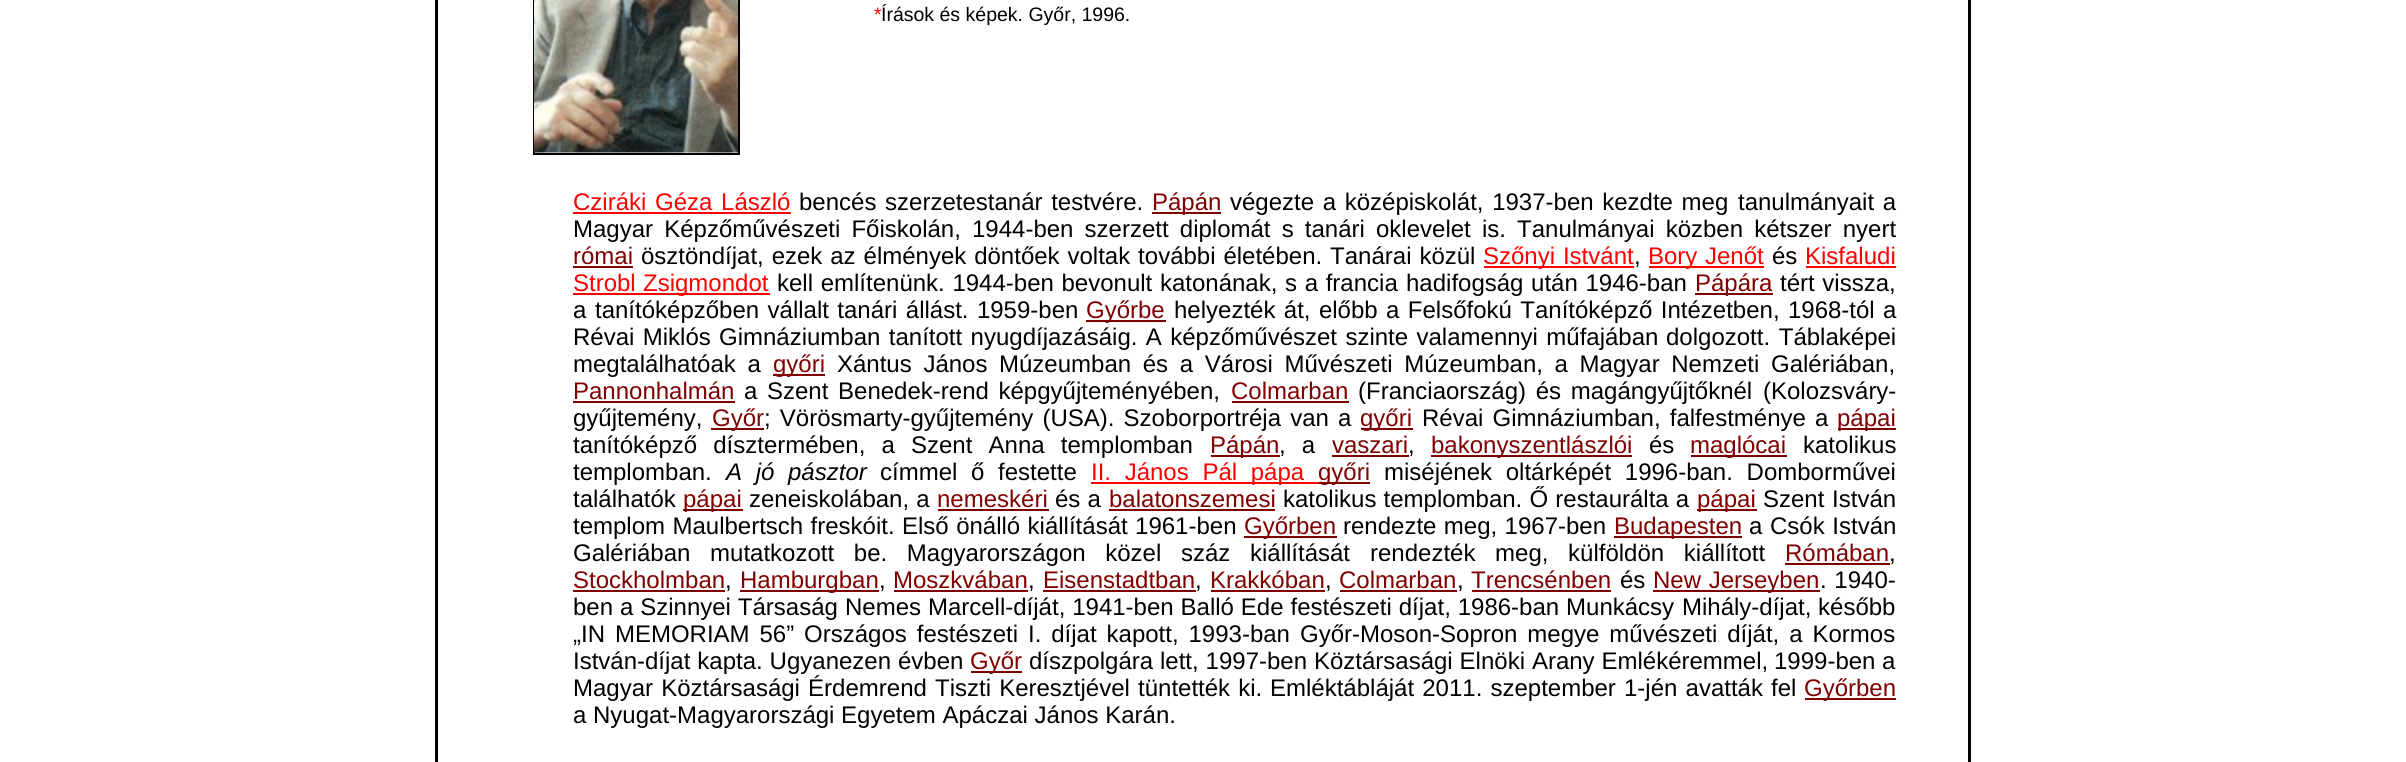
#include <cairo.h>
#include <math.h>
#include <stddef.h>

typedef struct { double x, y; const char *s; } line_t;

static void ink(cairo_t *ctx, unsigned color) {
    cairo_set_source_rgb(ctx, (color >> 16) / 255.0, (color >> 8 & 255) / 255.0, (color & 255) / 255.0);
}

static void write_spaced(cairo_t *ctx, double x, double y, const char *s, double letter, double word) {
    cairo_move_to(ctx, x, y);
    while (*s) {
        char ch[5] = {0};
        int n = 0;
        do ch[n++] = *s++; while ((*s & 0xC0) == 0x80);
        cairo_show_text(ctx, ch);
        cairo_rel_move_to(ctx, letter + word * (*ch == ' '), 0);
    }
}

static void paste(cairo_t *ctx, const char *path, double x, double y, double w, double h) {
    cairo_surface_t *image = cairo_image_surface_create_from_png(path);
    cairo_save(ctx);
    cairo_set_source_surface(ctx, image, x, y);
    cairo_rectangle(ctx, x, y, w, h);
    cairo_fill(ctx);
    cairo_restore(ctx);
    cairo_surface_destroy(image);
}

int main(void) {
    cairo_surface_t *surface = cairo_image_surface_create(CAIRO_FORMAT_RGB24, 2406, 762);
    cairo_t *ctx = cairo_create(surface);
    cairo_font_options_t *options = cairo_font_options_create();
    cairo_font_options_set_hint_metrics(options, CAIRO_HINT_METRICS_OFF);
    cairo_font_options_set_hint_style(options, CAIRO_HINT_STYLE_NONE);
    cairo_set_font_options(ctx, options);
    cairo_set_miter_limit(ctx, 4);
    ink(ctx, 0xFFFFFF);
    cairo_paint(ctx);
    cairo_rectangle(ctx, 436.5, -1.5, 1533, 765);
    ink(ctx, 0x000000);
    cairo_set_line_width(ctx, 3);
    cairo_stroke(ctx);
    cairo_rectangle(ctx, 534, -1, 205, 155);
    cairo_set_line_width(ctx, 2);
    cairo_stroke(ctx);
    paste(ctx, "media/1.png", 534, 0, 204, 153);
    cairo_select_font_face(ctx, "Liberation Sans", CAIRO_FONT_SLANT_NORMAL, CAIRO_FONT_WEIGHT_NORMAL);
    cairo_set_font_size(ctx, 19.5);
    ink(ctx, 0xFF0000);
    cairo_move_to(ctx, 874, 21);
    cairo_show_text(ctx, "*");
    ink(ctx, 0x000000);
    cairo_move_to(ctx, 881, 21);
    cairo_show_text(ctx, "Írások és képek. Győr, 1996.");
    cairo_set_font_size(ctx, 24);
    ink(ctx, 0xFF0000);
    write_spaced(ctx, 573, 210, "Cziráki Géza László", 0, 2);
    cairo_rectangle(ctx, 573, 212, 218, 2);
    cairo_fill(ctx);
    ink(ctx, 0x000000);
    write_spaced(ctx, 799, 210, "bencés szerzetestanár testvére.", 0, 2);
    ink(ctx, 0x800000);
    cairo_rectangle(ctx, 1152, 212, 69, 2);
    cairo_fill(ctx);
    cairo_move_to(ctx, 1152, 210);
    cairo_show_text(ctx, "Pápán");
    ink(ctx, 0x000000);
    write_spaced(ctx, 1230, 210, "végezte a középiskolát, 1937-ben kezdte meg", 0, 2);
    write_spaced(ctx, 1738, 210, "tanulmányait a", 0, 2);
    write_spaced(ctx, 573, 237, "Magyar Képzőművészeti Főiskolán, 1944-ben szerzett diplomát s tanári", 0, 4.5);
    write_spaced(ctx, 1376, 237, "oklevelet is. Tanulmányai közben kétszer nyert", 0, 4.5);
    ink(ctx, 0x800000);
    cairo_move_to(ctx, 573, 264);
    cairo_show_text(ctx, "római");
    cairo_rectangle(ctx, 573, 266, 60, 2);
    cairo_fill(ctx);
    ink(ctx, 0x000000);
    write_spaced(ctx, 641, 264, "ösztöndíjat, ezek az élmények döntőek voltak további életében. Tanárai közül", 0, 1.25);
    ink(ctx, 0xFF0000);
    cairo_rectangle(ctx, 1484, 266, 150, 2);
    cairo_fill(ctx);
    write_spaced(ctx, 1483, 264, "Szőnyi Istvánt", 0, 1.25);
    ink(ctx, 0x000000);
    cairo_move_to(ctx, 1634, 264);
    cairo_show_text(ctx, ",");
    ink(ctx, 0xFF0000);
    cairo_rectangle(ctx, 1649, 266, 115, 2);
    cairo_fill(ctx);
    cairo_move_to(ctx, 1648, 264);
    cairo_show_text(ctx, "Bory");
    cairo_move_to(ctx, 1705, 264);
    cairo_show_text(ctx, "Jenőt");
    ink(ctx, 0x000000);
    cairo_move_to(ctx, 1772, 264);
    cairo_show_text(ctx, "és");
    ink(ctx, 0xFF0000);
    cairo_move_to(ctx, 1805, 264);
    cairo_show_text(ctx, "Kisfaludi");
    cairo_rectangle(ctx, 1806, 266, 90, 2);
    cairo_fill(ctx);
    cairo_move_to(ctx, 573, 291);
    cairo_show_text(ctx, "Strobl");
    cairo_rectangle(ctx, 573, 293, 197, 2);
    cairo_fill(ctx);
    cairo_move_to(ctx, 643, 291);
    cairo_show_text(ctx, "Zsigmondot");
    ink(ctx, 0x000000);
    write_spaced(ctx, 777, 291, "kell említenünk. 1944-ben bevonult katonának, s a francia", 0, 1);
    write_spaced(ctx, 1406, 291, "hadifogság után 1946-ban", 0, 1);
    ink(ctx, 0x800000);
    cairo_rectangle(ctx, 1695, 293, 78, 2);
    cairo_fill(ctx);
    cairo_move_to(ctx, 1695, 291);
    cairo_show_text(ctx, "Pápára");
    ink(ctx, 0x000000);
    write_spaced(ctx, 1780, 291, "tért vissza,", 0, 1);
    cairo_move_to(ctx, 573, 318);
    cairo_show_text(ctx, "a");
    write_spaced(ctx, 595, 318, "tanítóképzőben vállalt tanári állást. 1959-ben", 0, 1.75);
    ink(ctx, 0x800000);
    cairo_rectangle(ctx, 1086, 320, 80, 2);
    cairo_fill(ctx);
    cairo_move_to(ctx, 1086, 318);
    cairo_show_text(ctx, "Győrbe");
    ink(ctx, 0x000000);
    {
        static const line_t items[] = {
            {1174, 318, "helyezték át, előbb a Felsőfokú Tanítóképző Intézetben, 1968-tól a"},
            {573, 345, "Révai Miklós"},
            {719, 345, "Gimnáziumban tanított nyugdíjazásáig. A képzőművészet szinte valamennyi műfajában"},
        };
        for (size_t i = 0; i < sizeof items / sizeof *items; i++) {
            write_spaced(ctx, items[i].x, items[i].y, items[i].s, 0, 1.75);
        }
    }
    write_spaced(ctx, 1666, 345, "dolgozott. Táblaképei", 0, 2);
    write_spaced(ctx, 573, 372, "megtalálhatóak a", 0, 5);
    ink(ctx, 0x800000);
    cairo_rectangle(ctx, 773, 374, 52, 2);
    cairo_fill(ctx);
    cairo_move_to(ctx, 773, 372);
    cairo_show_text(ctx, "győri");
    ink(ctx, 0x000000);
    write_spaced(ctx, 837, 372, "Xántus János", 0, 5);
    write_spaced(ctx, 999, 372, "Múzeumban és a Városi Művészeti Múzeumban, a Magyar Nemzeti Galériában,", 0, 5);
    ink(ctx, 0x800000);
    cairo_move_to(ctx, 573, 399);
    cairo_show_text(ctx, "Pannonhalmán");
    cairo_rectangle(ctx, 573, 401, 162, 2);
    cairo_fill(ctx);
    ink(ctx, 0x000000);
    write_spaced(ctx, 744, 399, "a Szent Benedek-rend képgyűjteményében,", 0, 3);
    ink(ctx, 0x800000);
    cairo_move_to(ctx, 1231, 399);
    cairo_show_text(ctx, "Colmarban");
    cairo_rectangle(ctx, 1232, 401, 117, 2);
    cairo_fill(ctx);
    ink(ctx, 0x000000);
    write_spaced(ctx, 1358, 399, "(Franciaország) és magángyűjtőknél", 0, 3);
    cairo_move_to(ctx, 1763, 399);
    cairo_show_text(ctx, "(Kolozsváry-");
    cairo_move_to(ctx, 573, 426);
    cairo_show_text(ctx, "gyűjtemény,");
    ink(ctx, 0x800000);
    cairo_rectangle(ctx, 711, 428, 53, 2);
    cairo_fill(ctx);
    cairo_move_to(ctx, 712, 426);
    cairo_show_text(ctx, "Győr");
    ink(ctx, 0x000000);
    write_spaced(ctx, 764, 426, "; Vörösmarty-gyűjtemény (USA). Szoborportréja van a", 0, 2.5);
    ink(ctx, 0x800000);
    cairo_rectangle(ctx, 1361, 428, 52, 2);
    cairo_fill(ctx);
    cairo_move_to(ctx, 1360, 426);
    cairo_show_text(ctx, "győri");
    ink(ctx, 0x000000);
    write_spaced(ctx, 1422, 426, "Révai Gimnáziumban, falfestménye a", 0, 2.5);
    ink(ctx, 0x800000);
    cairo_rectangle(ctx, 1838, 428, 58, 2);
    cairo_fill(ctx);
    cairo_move_to(ctx, 1837, 426);
    cairo_show_text(ctx, "pápai");
    ink(ctx, 0x000000);
    write_spaced(ctx, 573, 453, "tanítóképző dísztermében, a Szent Anna templomban", 0, 9.5);
    ink(ctx, 0x800000);
    cairo_rectangle(ctx, 1211, 455, 69, 2);
    cairo_fill(ctx);
    cairo_move_to(ctx, 1210, 453);
    cairo_show_text(ctx, "Pápán");
    ink(ctx, 0x000000);
    write_spaced(ctx, 1279, 453, ", a", 0, 9.5);
    ink(ctx, 0x800000);
    cairo_move_to(ctx, 1332, 453);
    cairo_show_text(ctx, "vaszari");
    cairo_rectangle(ctx, 1332, 455, 77, 2);
    cairo_fill(ctx);
    ink(ctx, 0x000000);
    cairo_move_to(ctx, 1408, 453);
    cairo_show_text(ctx, ",");
    ink(ctx, 0x800000);
    cairo_rectangle(ctx, 1431, 455, 201, 2);
    cairo_fill(ctx);
    cairo_move_to(ctx, 1431, 453);
    cairo_show_text(ctx, "bakonyszentlászlói");
    ink(ctx, 0x000000);
    cairo_move_to(ctx, 1649, 453);
    cairo_show_text(ctx, "és");
    ink(ctx, 0x800000);
    cairo_rectangle(ctx, 1691, 455, 96, 2);
    cairo_fill(ctx);
    cairo_move_to(ctx, 1690, 453);
    cairo_show_text(ctx, "maglócai");
    ink(ctx, 0x000000);
    cairo_move_to(ctx, 1803, 453);
    cairo_show_text(ctx, "katolikus");
    cairo_move_to(ctx, 573, 480);
    cairo_show_text(ctx, "templomban.");
    cairo_select_font_face(ctx, "Liberation Sans", CAIRO_FONT_SLANT_ITALIC, CAIRO_FONT_WEIGHT_NORMAL);
    write_spaced(ctx, 726, 480, "A jó pásztor", 0, 7);
    cairo_select_font_face(ctx, "Liberation Sans", CAIRO_FONT_SLANT_NORMAL, CAIRO_FONT_WEIGHT_NORMAL);
    write_spaced(ctx, 880, 480, "címmel ő festette", 0, 7);
    ink(ctx, 0xFF0000);
    cairo_rectangle(ctx, 1091, 482, 228, 2);
    cairo_fill(ctx);
    write_spaced(ctx, 1091, 480, "II. János Pál pápa", 0, 7);
    ink(ctx, 0x800000);
    cairo_rectangle(ctx, 1319, 482, 51, 2);
    cairo_fill(ctx);
    cairo_move_to(ctx, 1318, 480);
    cairo_show_text(ctx, "győri");
    ink(ctx, 0x000000);
    write_spaced(ctx, 1384, 480, "miséjének oltárképét 1996-ban. Domborművei", 0, 7);
    cairo_move_to(ctx, 573, 507);
    cairo_show_text(ctx, "találhatók");
    ink(ctx, 0x800000);
    cairo_rectangle(ctx, 683, 509, 60, 2);
    cairo_fill(ctx);
    cairo_move_to(ctx, 683, 507);
    cairo_show_text(ctx, "pápai");
    ink(ctx, 0x000000);
    write_spaced(ctx, 749, 507, "zeneiskolában, a", 0, 0.5);
    ink(ctx, 0x800000);
    cairo_move_to(ctx, 937, 507);
    cairo_show_text(ctx, "nemeskéri");
    cairo_rectangle(ctx, 938, 509, 111, 2);
    cairo_fill(ctx);
    ink(ctx, 0x000000);
    write_spaced(ctx, 1055, 507, "és a", 0, 0.5);
    ink(ctx, 0x800000);
    cairo_move_to(ctx, 1109, 507);
    cairo_show_text(ctx, "balatonszemesi");
    cairo_rectangle(ctx, 1109, 509, 166, 2);
    cairo_fill(ctx);
    ink(ctx, 0x000000);
    write_spaced(ctx, 1283, 507, "katolikus templomban. Ő restaurálta a", 0, 0.5);
    ink(ctx, 0x800000);
    cairo_rectangle(ctx, 1697, 509, 60, 2);
    cairo_fill(ctx);
    cairo_move_to(ctx, 1697, 507);
    cairo_show_text(ctx, "pápai");
    ink(ctx, 0x000000);
    write_spaced(ctx, 1763, 507, "Szent István", 0, 1);
    write_spaced(ctx, 573, 534, "templom Maulbertsch freskóit. Első önálló kiállítását 1961-ben", 0, 0.75);
    ink(ctx, 0x800000);
    cairo_rectangle(ctx, 1244, 536, 93, 2);
    cairo_fill(ctx);
    cairo_move_to(ctx, 1244, 534);
    cairo_show_text(ctx, "Győrben");
    ink(ctx, 0x000000);
    write_spaced(ctx, 1343, 534, "rendezte meg, 1967-ben", 0, 0.75);
    ink(ctx, 0x800000);
    cairo_rectangle(ctx, 1614, 536, 128, 2);
    cairo_fill(ctx);
    cairo_move_to(ctx, 1614, 534);
    cairo_show_text(ctx, "Budapesten");
    ink(ctx, 0x000000);
    write_spaced(ctx, 1749, 534, "a Csók István", 0, 1);
    write_spaced(ctx, 573, 561, "Galériában mutatkozott be. Magyarországon közel száz kiállítását", 0, 13);
    write_spaced(ctx, 1370, 561, "rendezték meg, külföldön kiállított", 0, 13);
    ink(ctx, 0x800000);
    cairo_move_to(ctx, 1785, 561);
    cairo_show_text(ctx, "Rómában");
    cairo_rectangle(ctx, 1785, 563, 105, 2);
    cairo_fill(ctx);
    ink(ctx, 0x000000);
    cairo_move_to(ctx, 1889, 561);
    cairo_show_text(ctx, ",");
    ink(ctx, 0x800000);
    cairo_move_to(ctx, 573, 588);
    cairo_show_text(ctx, "Stockholmban");
    cairo_rectangle(ctx, 573, 590, 152, 2);
    cairo_fill(ctx);
    ink(ctx, 0x000000);
    cairo_move_to(ctx, 725, 588);
    cairo_show_text(ctx, ",");
    ink(ctx, 0x800000);
    cairo_rectangle(ctx, 740, 590, 139, 2);
    cairo_fill(ctx);
    cairo_move_to(ctx, 740, 588);
    cairo_show_text(ctx, "Hamburgban");
    ink(ctx, 0x000000);
    cairo_move_to(ctx, 879, 588);
    cairo_show_text(ctx, ",");
    ink(ctx, 0x800000);
    cairo_move_to(ctx, 893, 588);
    cairo_show_text(ctx, "Moszkvában");
    cairo_rectangle(ctx, 894, 590, 134, 2);
    cairo_fill(ctx);
    ink(ctx, 0x000000);
    cairo_move_to(ctx, 1028, 588);
    cairo_show_text(ctx, ",");
    ink(ctx, 0x800000);
    cairo_move_to(ctx, 1043, 588);
    cairo_show_text(ctx, "Eisenstadtban");
    cairo_rectangle(ctx, 1043, 590, 153, 2);
    cairo_fill(ctx);
    ink(ctx, 0x000000);
    cairo_move_to(ctx, 1195, 588);
    cairo_show_text(ctx, ",");
    ink(ctx, 0x800000);
    cairo_move_to(ctx, 1210, 588);
    cairo_show_text(ctx, "Krakkóban");
    cairo_rectangle(ctx, 1211, 590, 114, 2);
    cairo_fill(ctx);
    ink(ctx, 0x000000);
    cairo_move_to(ctx, 1325, 588);
    cairo_show_text(ctx, ",");
    ink(ctx, 0x800000);
    cairo_move_to(ctx, 1339, 588);
    cairo_show_text(ctx, "Colmarban");
    cairo_rectangle(ctx, 1340, 590, 117, 2);
    cairo_fill(ctx);
    ink(ctx, 0x000000);
    cairo_move_to(ctx, 1457, 588);
    cairo_show_text(ctx, ",");
    ink(ctx, 0x800000);
    cairo_move_to(ctx, 1471, 588);
    cairo_show_text(ctx, "Trencsénben");
    cairo_rectangle(ctx, 1472, 590, 139, 2);
    cairo_fill(ctx);
    ink(ctx, 0x000000);
    cairo_move_to(ctx, 1620, 588);
    cairo_show_text(ctx, "és");
    ink(ctx, 0x800000);
    cairo_rectangle(ctx, 1653, 590, 167, 2);
    cairo_fill(ctx);
    write_spaced(ctx, 1653, 588, "New Jerseyben", 0, 1);
    ink(ctx, 0x000000);
    write_spaced(ctx, 1820, 588, ". 1940-", 0, 1);
    write_spaced(ctx, 573, 615, "ben a Szinnyei Társaság", 0, 0.25);
    write_spaced(ctx, 845, 615, "Nemes Marcell-díját, 1941-ben Balló Ede festészeti díjat, 1986-ban Munkácsy", 0, 0.25);
    cairo_move_to(ctx, 1682, 615);
    cairo_show_text(ctx, "Mihály-díjat, később");
    write_spaced(ctx, 573, 642, "„IN MEMORIAM 56” Országos festészeti I. díjat kapott, 1993-ban", 0, 3.25);
    write_spaced(ctx, 1300, 642, "Győr-Moson-Sopron megye művészeti díját, a Kormos", 0, 3.25);
    write_spaced(ctx, 573, 669, "István-díjat kapta. Ugyanezen", 0, 0.25);
    cairo_move_to(ctx, 898, 669);
    cairo_show_text(ctx, "évben");
    ink(ctx, 0x800000);
    cairo_rectangle(ctx, 971, 671, 51, 2);
    cairo_fill(ctx);
    cairo_move_to(ctx, 970, 669);
    cairo_show_text(ctx, "Győr");
    ink(ctx, 0x000000);
    write_spaced(ctx, 1029, 669, "díszpolgára lett, 1997-ben Köztársasági Elnöki Arany Emlékéremmel,", 0, 0.25);
    cairo_move_to(ctx, 1774, 669);
    cairo_show_text(ctx, "1999-ben a");
    write_spaced(ctx, 573, 696, "Magyar Köztársasági Érdemrend Tiszti Keresztjével tüntették ki.", 0, 1.5);
    write_spaced(ctx, 1270, 696, "Emléktábláját 2011. szeptember 1-jén avatták fel", 0, 1.5);
    ink(ctx, 0x800000);
    cairo_rectangle(ctx, 1805, 698, 91, 2);
    cairo_fill(ctx);
    cairo_move_to(ctx, 1804, 696);
    cairo_show_text(ctx, "Győrben");
    ink(ctx, 0x000000);
    cairo_move_to(ctx, 573, 723);
    cairo_show_text(ctx, "a Nyugat-Magyarországi Egyetem Apáczai János Karán.");
    cairo_surface_write_to_png(surface, "image.png");
    cairo_font_options_destroy(options);
    cairo_destroy(ctx);
    cairo_surface_destroy(surface);
    return 0;
}
